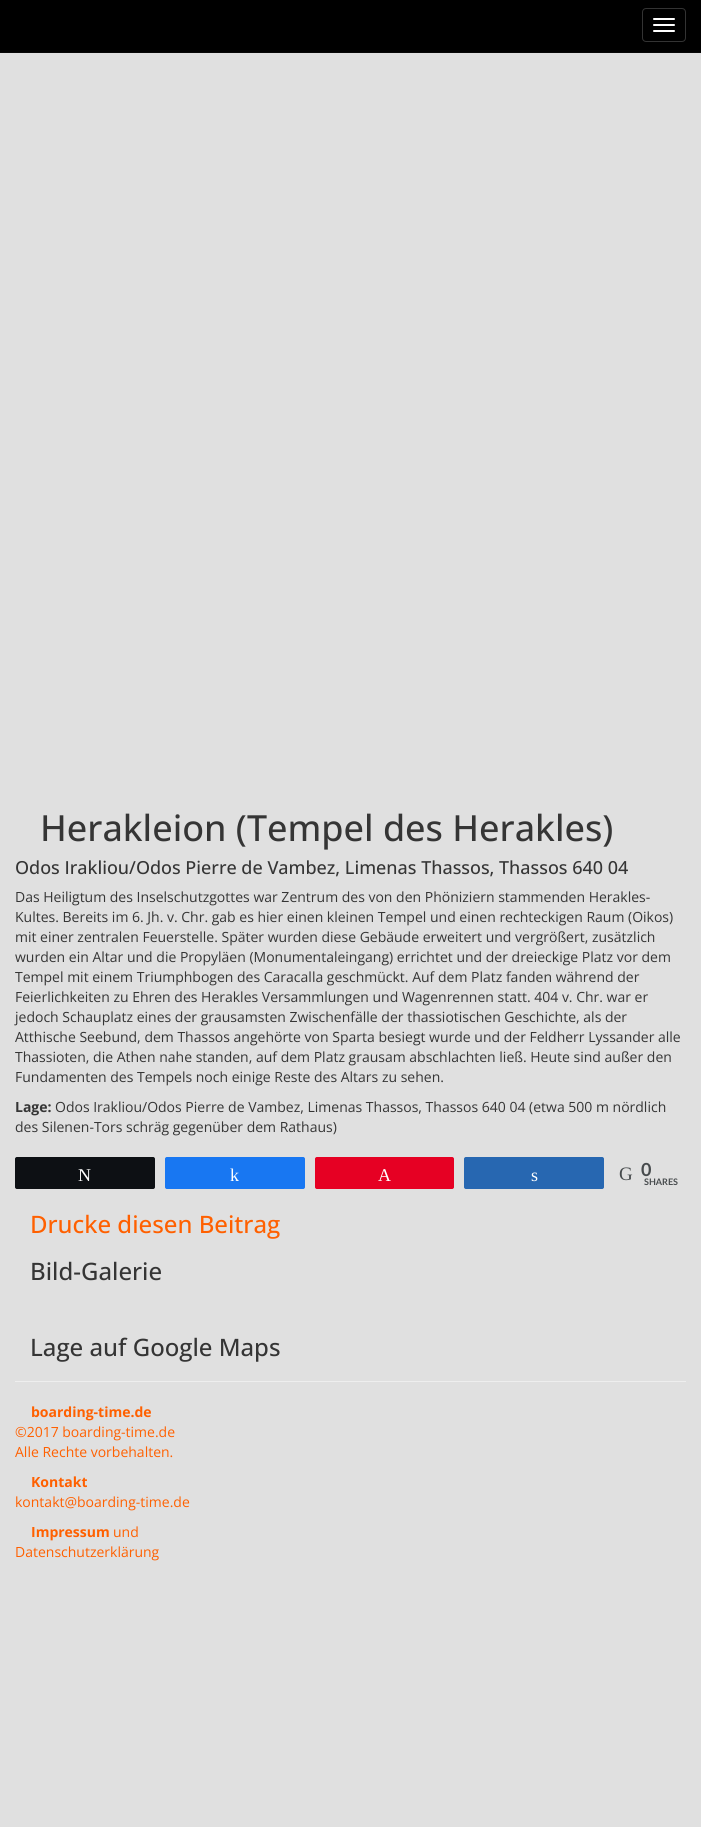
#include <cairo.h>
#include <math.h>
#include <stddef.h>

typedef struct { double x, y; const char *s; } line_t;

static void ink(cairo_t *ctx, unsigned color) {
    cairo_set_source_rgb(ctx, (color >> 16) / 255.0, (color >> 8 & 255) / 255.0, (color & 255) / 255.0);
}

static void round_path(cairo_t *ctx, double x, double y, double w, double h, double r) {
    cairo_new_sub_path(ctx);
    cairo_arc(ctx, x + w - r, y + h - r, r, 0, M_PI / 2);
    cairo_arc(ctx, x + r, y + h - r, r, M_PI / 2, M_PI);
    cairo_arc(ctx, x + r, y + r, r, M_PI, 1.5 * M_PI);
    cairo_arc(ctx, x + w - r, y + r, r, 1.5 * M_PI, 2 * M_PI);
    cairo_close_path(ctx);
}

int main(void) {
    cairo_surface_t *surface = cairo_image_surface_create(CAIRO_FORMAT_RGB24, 701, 1827);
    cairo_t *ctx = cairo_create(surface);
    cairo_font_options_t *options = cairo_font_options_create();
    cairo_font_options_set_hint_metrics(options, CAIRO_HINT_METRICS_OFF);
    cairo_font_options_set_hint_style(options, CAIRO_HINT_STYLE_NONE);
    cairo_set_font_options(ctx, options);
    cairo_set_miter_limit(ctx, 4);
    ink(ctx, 0xE0E0E0);
    cairo_paint(ctx);
    ink(ctx, 0x000000);
    cairo_rectangle(ctx, 0, 0, 701, 52);
    cairo_fill(ctx);
    ink(ctx, 0x080808);
    cairo_rectangle(ctx, 0, 52, 701, 1);
    cairo_fill(ctx);
    round_path(ctx, 642.5, 8.5, 43, 33, 3.5);
    ink(ctx, 0x333333);
    cairo_set_line_width(ctx, 1);
    cairo_stroke(ctx);
    ink(ctx, 0xFFFFFF);
    round_path(ctx, 653, 18, 22, 2, 1);
    cairo_fill(ctx);
    round_path(ctx, 653, 24, 22, 2, 1);
    cairo_fill(ctx);
    round_path(ctx, 653, 30, 22, 2, 1);
    cairo_fill(ctx);
    cairo_select_font_face(ctx, "Open Sans Medium", CAIRO_FONT_SLANT_NORMAL, CAIRO_FONT_WEIGHT_NORMAL);
    cairo_set_font_size(ctx, 36);
    ink(ctx, 0x353535);
    cairo_move_to(ctx, 40, 841);
    cairo_show_text(ctx, "Herakleion (Tempel des Herakles)");
    cairo_set_font_size(ctx, 18);
    cairo_move_to(ctx, 15, 874);
    cairo_show_text(ctx, "Odos Irakliou/Odos Pierre de Vambez, Limenas Thassos, Thassos 640 04");
    cairo_select_font_face(ctx, "Open Sans", CAIRO_FONT_SLANT_NORMAL, CAIRO_FONT_WEIGHT_NORMAL);
    cairo_set_font_size(ctx, 14);
    {
        static const line_t items[] = {
            {15, 902, "Das Heiligtum des Inselschutzgottes war Zentrum des von den Phöniziern stammenden Herakles-"},
            {15, 922, "Kultes. Bereits im 6. Jh. v. Chr. gab es hier einen kleinen Tempel und einen rechteckigen Raum (Oikos)"},
            {15, 942, "mit einer zentralen Feuerstelle. Später wurden diese Gebäude erweitert und vergrößert, zusätzlich"},
            {15, 962, "wurden ein Altar und die Propyläen (Monumentaleingang) errichtet und der dreieckige Platz vor dem"},
            {15, 982, "Tempel mit einem Triumphbogen des Caracalla geschmückt. Auf dem Platz fanden während der"},
            {15, 1002, "Feierlichkeiten zu Ehren des Herakles Versammlungen und Wagenrennen statt. 404 v. Chr. war er"},
            {15, 1022, "jedoch Schauplatz eines der grausamsten Zwischenfälle der thassiotischen Geschichte, als der"},
            {15, 1042, "Atthische Seebund, dem Thassos angehörte von Sparta besiegt wurde und der Feldherr Lyssander alle"},
            {15, 1062, "Thassioten, die Athen nahe standen, auf dem Platz grausam abschlachten ließ. Heute sind außer den"},
            {15, 1082, "Fundamenten des Tempels noch einige Reste des Altars zu sehen."},
        };
        for (size_t i = 0; i < sizeof items / sizeof *items; i++) {
            cairo_move_to(ctx, items[i].x, items[i].y);
            cairo_show_text(ctx, items[i].s);
        }
    }
    cairo_select_font_face(ctx, "Open Sans", CAIRO_FONT_SLANT_NORMAL, CAIRO_FONT_WEIGHT_BOLD);
    cairo_move_to(ctx, 15, 1112);
    cairo_show_text(ctx, "Lage:");
    cairo_select_font_face(ctx, "Open Sans", CAIRO_FONT_SLANT_NORMAL, CAIRO_FONT_WEIGHT_NORMAL);
    cairo_move_to(ctx, 55, 1112);
    cairo_show_text(ctx, "Odos Irakliou/Odos Pierre de Vambez, Limenas Thassos, Thassos 640 04 (etwa 500 m nördlich");
    cairo_move_to(ctx, 15, 1132);
    cairo_show_text(ctx, "des Silenen-Tors schräg gegenüber dem Rathaus)");
    ink(ctx, 0x0D1014);
    round_path(ctx, 15.5, 1157.5, 139, 31, 1.5);
    cairo_fill_preserve(ctx);
    cairo_stroke(ctx);
    cairo_select_font_face(ctx, "Liberation Serif", CAIRO_FONT_SLANT_NORMAL, CAIRO_FONT_WEIGHT_NORMAL);
    cairo_set_font_size(ctx, 18);
    ink(ctx, 0xFFFFFF);
    cairo_move_to(ctx, 78, 1181);
    cairo_show_text(ctx, "N");
    ink(ctx, 0x1877F2);
    round_path(ctx, 165.5, 1157.5, 139, 31, 1.5);
    cairo_fill_preserve(ctx);
    cairo_stroke(ctx);
    ink(ctx, 0xFFFFFF);
    cairo_move_to(ctx, 230, 1181);
    cairo_show_text(ctx, "k");
    ink(ctx, 0xE60023);
    round_path(ctx, 315.5, 1157.5, 138, 31, 1.5);
    cairo_fill_preserve(ctx);
    cairo_stroke(ctx);
    ink(ctx, 0xFFFFFF);
    cairo_move_to(ctx, 378, 1181);
    cairo_show_text(ctx, "A");
    ink(ctx, 0x2767B1);
    round_path(ctx, 464.5, 1157.5, 139, 31, 1.5);
    cairo_fill_preserve(ctx);
    cairo_stroke(ctx);
    ink(ctx, 0xFFFFFF);
    cairo_move_to(ctx, 531, 1181);
    cairo_show_text(ctx, "s");
    cairo_set_font_size(ctx, 19);
    ink(ctx, 0x474B4D);
    cairo_move_to(ctx, 619, 1180);
    cairo_show_text(ctx, "G");
    cairo_select_font_face(ctx, "Lato", CAIRO_FONT_SLANT_NORMAL, CAIRO_FONT_WEIGHT_BOLD);
    cairo_set_font_size(ctx, 18);
    cairo_move_to(ctx, 641, 1176);
    cairo_show_text(ctx, "0");
    cairo_set_font_size(ctx, 9);
    cairo_move_to(ctx, 644, 1185);
    cairo_show_text(ctx, "SHARES");
    cairo_select_font_face(ctx, "Open Sans Medium", CAIRO_FONT_SLANT_NORMAL, CAIRO_FONT_WEIGHT_NORMAL);
    cairo_set_font_size(ctx, 24);
    ink(ctx, 0xFF6000);
    cairo_move_to(ctx, 30, 1233);
    cairo_show_text(ctx, "Drucke diesen Beitrag");
    ink(ctx, 0x353535);
    cairo_move_to(ctx, 30, 1280);
    cairo_show_text(ctx, "Bild-Galerie");
    cairo_move_to(ctx, 30, 1356);
    cairo_show_text(ctx, "Lage auf Google Maps");
    ink(ctx, 0xEEEEEE);
    cairo_rectangle(ctx, 15, 1381, 671, 1);
    cairo_fill(ctx);
    cairo_select_font_face(ctx, "Open Sans", CAIRO_FONT_SLANT_NORMAL, CAIRO_FONT_WEIGHT_BOLD);
    cairo_set_font_size(ctx, 14);
    ink(ctx, 0xFF6000);
    cairo_move_to(ctx, 31, 1417);
    cairo_show_text(ctx, "boarding-time.de");
    cairo_select_font_face(ctx, "Open Sans", CAIRO_FONT_SLANT_NORMAL, CAIRO_FONT_WEIGHT_NORMAL);
    cairo_move_to(ctx, 15, 1437);
    cairo_show_text(ctx, "©2017 boarding-time.de");
    cairo_move_to(ctx, 15, 1457);
    cairo_show_text(ctx, "Alle Rechte vorbehalten.");
    cairo_select_font_face(ctx, "Open Sans", CAIRO_FONT_SLANT_NORMAL, CAIRO_FONT_WEIGHT_BOLD);
    cairo_move_to(ctx, 31, 1487);
    cairo_show_text(ctx, "Kontakt");
    cairo_select_font_face(ctx, "Open Sans", CAIRO_FONT_SLANT_NORMAL, CAIRO_FONT_WEIGHT_NORMAL);
    cairo_move_to(ctx, 15, 1507);
    cairo_show_text(ctx, "kontakt@boarding-time.de");
    cairo_select_font_face(ctx, "Open Sans", CAIRO_FONT_SLANT_NORMAL, CAIRO_FONT_WEIGHT_BOLD);
    cairo_move_to(ctx, 31, 1537);
    cairo_show_text(ctx, "Impressum");
    cairo_select_font_face(ctx, "Open Sans", CAIRO_FONT_SLANT_NORMAL, CAIRO_FONT_WEIGHT_NORMAL);
    cairo_move_to(ctx, 113, 1537);
    cairo_show_text(ctx, "und");
    cairo_move_to(ctx, 15, 1557);
    cairo_show_text(ctx, "Datenschutzerklärung");
    cairo_surface_write_to_png(surface, "image.png");
    cairo_font_options_destroy(options);
    cairo_destroy(ctx);
    cairo_surface_destroy(surface);
    return 0;
}
